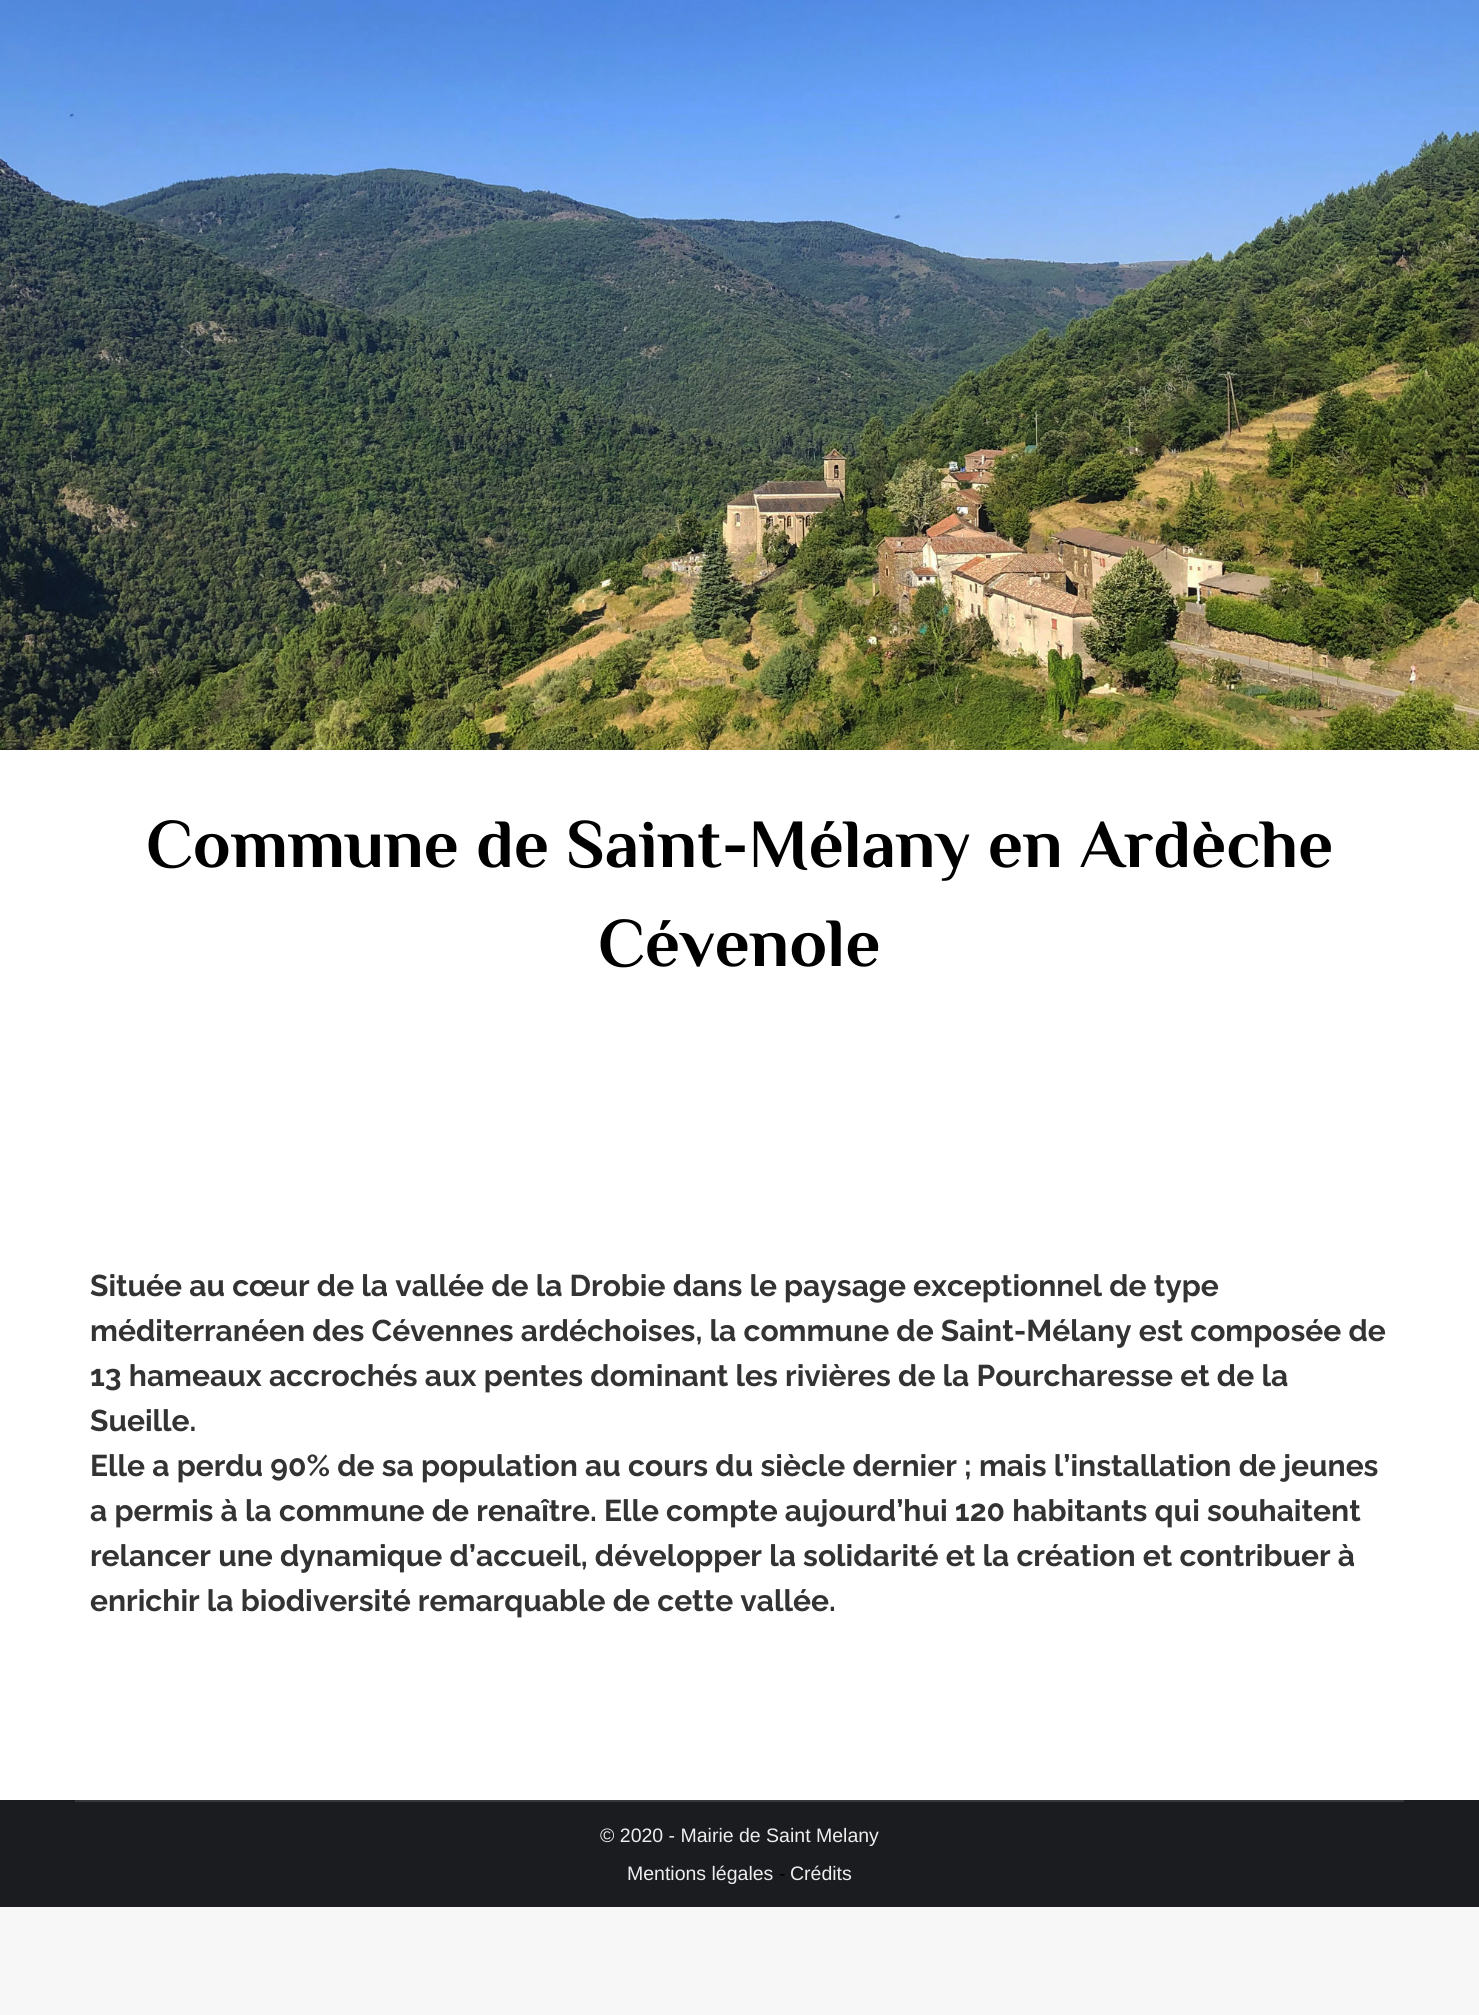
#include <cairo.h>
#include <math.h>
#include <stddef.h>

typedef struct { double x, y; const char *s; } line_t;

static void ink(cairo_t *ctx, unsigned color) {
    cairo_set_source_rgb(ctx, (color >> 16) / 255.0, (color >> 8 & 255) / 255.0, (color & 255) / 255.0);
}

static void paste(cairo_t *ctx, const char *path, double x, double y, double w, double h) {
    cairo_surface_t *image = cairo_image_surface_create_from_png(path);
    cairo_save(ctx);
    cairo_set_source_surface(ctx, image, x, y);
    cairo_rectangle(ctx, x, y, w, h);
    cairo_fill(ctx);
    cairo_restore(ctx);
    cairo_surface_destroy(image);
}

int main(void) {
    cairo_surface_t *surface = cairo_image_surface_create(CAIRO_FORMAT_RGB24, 1479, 2015);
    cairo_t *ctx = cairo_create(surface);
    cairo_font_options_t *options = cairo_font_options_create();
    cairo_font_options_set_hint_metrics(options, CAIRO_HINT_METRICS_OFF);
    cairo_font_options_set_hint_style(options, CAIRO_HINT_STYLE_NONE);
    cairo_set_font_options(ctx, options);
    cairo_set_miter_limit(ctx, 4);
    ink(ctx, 0xF7F7F7);
    cairo_paint(ctx);
    ink(ctx, 0xFFFFFF);
    cairo_rectangle(ctx, 0, 750, 1479, 1050);
    cairo_fill(ctx);
    paste(ctx, "media/1.png", 0, 0, 1479, 750);
    cairo_select_font_face(ctx, "Philosopher", CAIRO_FONT_SLANT_NORMAL, CAIRO_FONT_WEIGHT_BOLD);
    cairo_set_font_size(ctx, 69);
    ink(ctx, 0x000000);
    cairo_move_to(ctx, 146, 867);
    cairo_show_text(ctx, "Commune de Saint-Mélany en Ardèche");
    cairo_move_to(ctx, 598, 966);
    cairo_show_text(ctx, "Cévenole");
    cairo_select_font_face(ctx, "Raleway", CAIRO_FONT_SLANT_NORMAL, CAIRO_FONT_WEIGHT_BOLD);
    cairo_set_font_size(ctx, 30);
    ink(ctx, 0x333333);
    {
        static const line_t items[] = {
            {90, 1296, "Située au cœur de la vallée de la Drobie dans le paysage exceptionnel de type"},
            {90, 1341, "méditerranéen des Cévennes ardéchoises, la commune de Saint-Mélany est composée de"},
            {90, 1386, "13 hameaux accrochés aux pentes dominant les rivières de la Pourcharesse et de la"},
            {90, 1431, "Sueille."},
            {90, 1476, "Elle a perdu 90% de sa population au cours du siècle dernier ; mais l’installation de jeunes"},
            {90, 1521, "a permis à la commune de renaître. Elle compte aujourd’hui 120 habitants qui souhaitent"},
            {90, 1566, "relancer une dynamique d’accueil, développer la solidarité et la création et contribuer à"},
            {90, 1611, "enrichir la biodiversité remarquable de cette vallée."},
        };
        for (size_t i = 0; i < sizeof items / sizeof *items; i++) {
            cairo_move_to(ctx, items[i].x, items[i].y);
            cairo_show_text(ctx, items[i].s);
        }
    }
    ink(ctx, 0x1A1C20);
    cairo_rectangle(ctx, 0, 1800, 1479, 107);
    cairo_fill(ctx);
    ink(ctx, 0x35373B);
    cairo_rectangle(ctx, 75, 1800, 1329, 2);
    cairo_fill(ctx);
    cairo_select_font_face(ctx, "Liberation Sans", CAIRO_FONT_SLANT_NORMAL, CAIRO_FONT_WEIGHT_NORMAL);
    cairo_set_font_size(ctx, 19.5);
    ink(ctx, 0xEEEEEE);
    cairo_move_to(ctx, 600, 1842);
    cairo_show_text(ctx, "© 2020 - Mairie de Saint Melany");
    cairo_move_to(ctx, 627, 1880);
    cairo_show_text(ctx, "Mentions légales");
    ink(ctx, 0x000000);
    cairo_move_to(ctx, 779, 1880);
    cairo_show_text(ctx, "-");
    ink(ctx, 0xEEEEEE);
    cairo_move_to(ctx, 790, 1880);
    cairo_show_text(ctx, "Crédits");
    cairo_surface_write_to_png(surface, "image.png");
    cairo_font_options_destroy(options);
    cairo_destroy(ctx);
    cairo_surface_destroy(surface);
    return 0;
}
